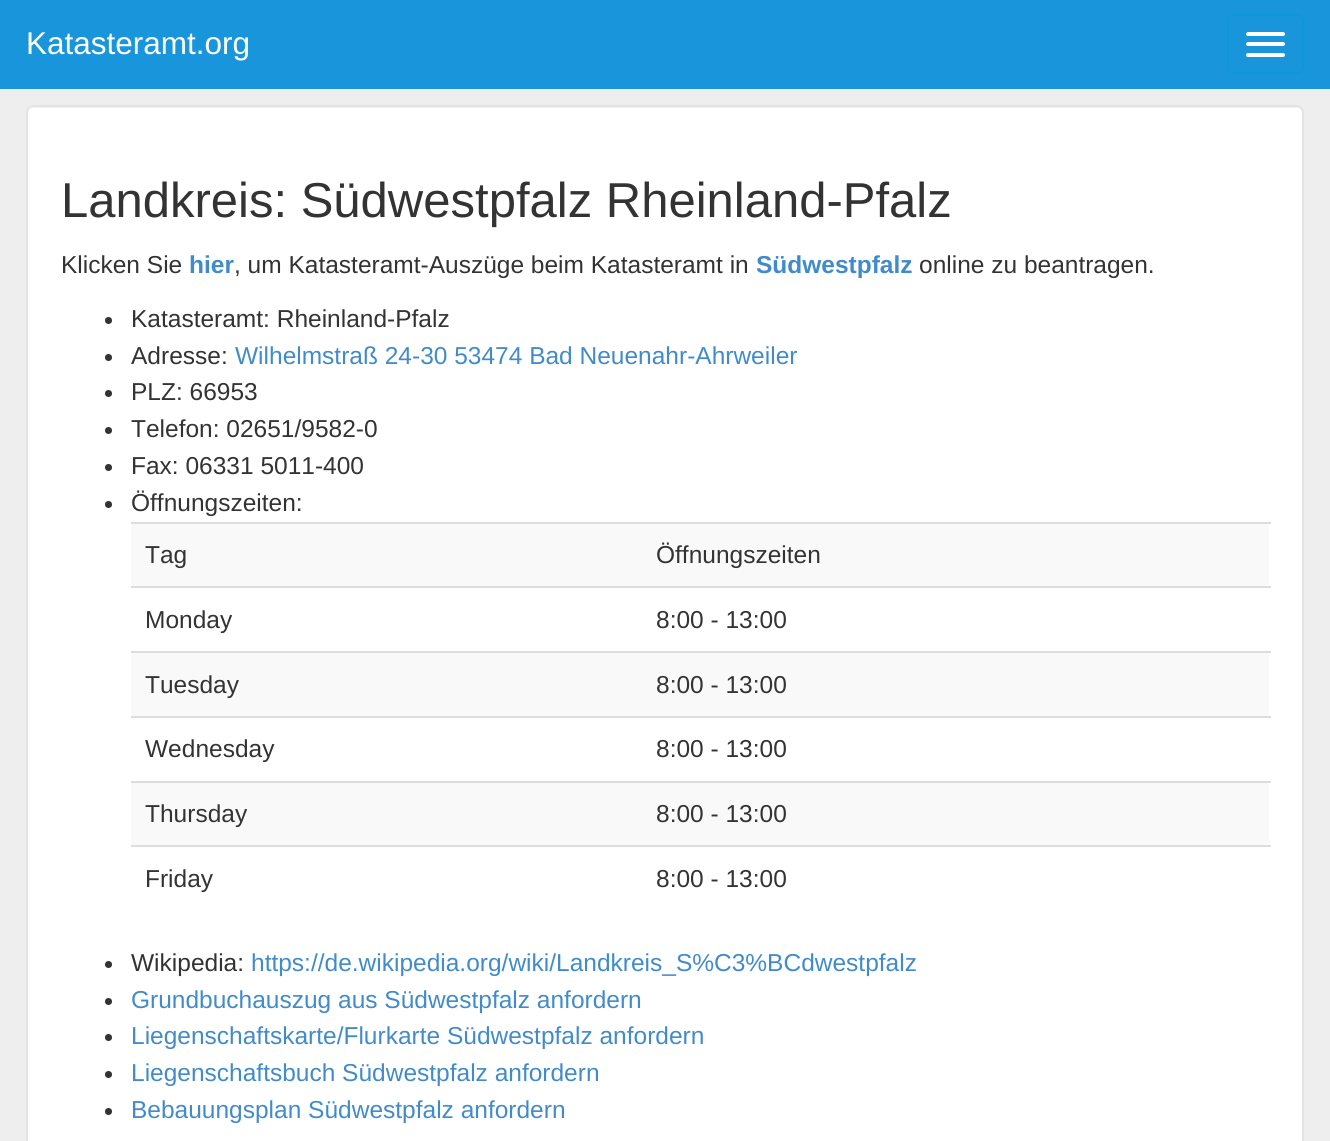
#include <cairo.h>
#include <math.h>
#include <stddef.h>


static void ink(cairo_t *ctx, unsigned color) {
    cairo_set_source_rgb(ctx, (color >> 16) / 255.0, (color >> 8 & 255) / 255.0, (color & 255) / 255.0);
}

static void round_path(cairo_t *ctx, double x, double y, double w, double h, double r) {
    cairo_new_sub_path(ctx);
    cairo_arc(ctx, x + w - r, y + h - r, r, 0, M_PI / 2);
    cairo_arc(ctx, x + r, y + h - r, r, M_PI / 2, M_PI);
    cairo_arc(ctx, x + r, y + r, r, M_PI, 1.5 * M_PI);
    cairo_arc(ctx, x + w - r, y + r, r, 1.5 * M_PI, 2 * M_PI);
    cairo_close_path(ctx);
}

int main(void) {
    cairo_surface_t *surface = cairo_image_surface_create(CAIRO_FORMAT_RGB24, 1330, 1141);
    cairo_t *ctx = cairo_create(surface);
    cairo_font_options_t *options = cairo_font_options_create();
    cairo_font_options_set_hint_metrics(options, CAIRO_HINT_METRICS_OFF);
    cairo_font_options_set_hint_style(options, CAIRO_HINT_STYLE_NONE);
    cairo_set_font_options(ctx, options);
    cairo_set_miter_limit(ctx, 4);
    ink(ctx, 0xEEEEEE);
    cairo_paint(ctx);
    ink(ctx, 0x1995DC);
    cairo_rectangle(ctx, 0, 0, 1330, 89);
    cairo_fill(ctx);
    cairo_select_font_face(ctx, "Liberation Sans", CAIRO_FONT_SLANT_NORMAL, CAIRO_FONT_WEIGHT_NORMAL);
    cairo_set_font_size(ctx, 31.5);
    ink(ctx, 0xFFFFFF);
    cairo_move_to(ctx, 26, 54);
    cairo_show_text(ctx, "Katasteramt.org");
    round_path(ctx, 1228, 15, 75, 58, 6);
    ink(ctx, 0x1195DC);
    cairo_stroke(ctx);
    ink(ctx, 0xFFFFFF);
    round_path(ctx, 1246, 32, 39, 4, 2);
    cairo_fill(ctx);
    round_path(ctx, 1246, 42, 39, 4, 2);
    cairo_fill(ctx);
    round_path(ctx, 1246, 53, 39, 4, 2);
    cairo_fill(ctx);
    round_path(ctx, 26, 105, 1278, 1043, 7);
    cairo_fill(ctx);
    ink(ctx, 0xF2F2F2);
    cairo_new_path(ctx);
    cairo_move_to(ctx, 33, 108);
    cairo_line_to(ctx, 1297, 108);
    cairo_curve_to(ctx, 1300, 108, 1302, 111, 1302, 114);
    cairo_line_to(ctx, 1302, 112);
    cairo_curve_to(ctx, 1302, 109, 1300, 107, 1297, 107);
    cairo_line_to(ctx, 33, 107);
    cairo_curve_to(ctx, 30, 107, 28, 109, 28, 112);
    cairo_line_to(ctx, 28, 114);
    cairo_curve_to(ctx, 28, 111, 30, 108, 33, 108);
    cairo_close_path(ctx);
    cairo_fill(ctx);
    round_path(ctx, 27, 106, 1276, 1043, 6);
    ink(ctx, 0xE3E3E3);
    cairo_stroke(ctx);
    cairo_set_font_size(ctx, 49);
    ink(ctx, 0x333333);
    cairo_move_to(ctx, 61, 217);
    cairo_show_text(ctx, "Landkreis: Südwestpfalz Rheinland-Pfalz");
    cairo_set_font_size(ctx, 24.5);
    cairo_move_to(ctx, 61, 273);
    cairo_show_text(ctx, "Klicken Sie");
    cairo_select_font_face(ctx, "Liberation Sans", CAIRO_FONT_SLANT_NORMAL, CAIRO_FONT_WEIGHT_BOLD);
    ink(ctx, 0x428BCA);
    cairo_move_to(ctx, 189, 273);
    cairo_show_text(ctx, "hier");
    cairo_select_font_face(ctx, "Liberation Sans", CAIRO_FONT_SLANT_NORMAL, CAIRO_FONT_WEIGHT_NORMAL);
    ink(ctx, 0x333333);
    cairo_move_to(ctx, 234, 273);
    cairo_show_text(ctx, ", um Katasteramt-Auszüge beim Katasteramt in");
    cairo_select_font_face(ctx, "Liberation Sans", CAIRO_FONT_SLANT_NORMAL, CAIRO_FONT_WEIGHT_BOLD);
    ink(ctx, 0x428BCA);
    cairo_move_to(ctx, 756, 273);
    cairo_show_text(ctx, "Südwestpfalz");
    cairo_select_font_face(ctx, "Liberation Sans", CAIRO_FONT_SLANT_NORMAL, CAIRO_FONT_WEIGHT_NORMAL);
    ink(ctx, 0x333333);
    cairo_move_to(ctx, 919, 273);
    cairo_show_text(ctx, "online zu beantragen.");
    cairo_new_path(ctx);
    cairo_arc(ctx, 108.5, 320.5, 3.5, 0, 2 * M_PI);
    cairo_fill(ctx);
    cairo_move_to(ctx, 131, 327);
    cairo_show_text(ctx, "Katasteramt: Rheinland-Pfalz");
    cairo_new_path(ctx);
    cairo_arc(ctx, 108.5, 357.5, 3.5, 0, 2 * M_PI);
    cairo_fill(ctx);
    cairo_move_to(ctx, 131, 364);
    cairo_show_text(ctx, "Adresse:");
    ink(ctx, 0x428BCA);
    cairo_move_to(ctx, 235, 364);
    cairo_show_text(ctx, "Wilhelmstraß 24-30 53474 Bad Neuenahr-Ahrweiler");
    ink(ctx, 0x333333);
    cairo_new_path(ctx);
    cairo_arc(ctx, 108.5, 393.5, 3.5, 0, 2 * M_PI);
    cairo_fill(ctx);
    cairo_move_to(ctx, 131, 400);
    cairo_show_text(ctx, "PLZ: 66953");
    cairo_new_path(ctx);
    cairo_arc(ctx, 108.5, 430.5, 3.5, 0, 2 * M_PI);
    cairo_fill(ctx);
    cairo_move_to(ctx, 131, 437);
    cairo_show_text(ctx, "Telefon: 02651/9582-0");
    cairo_new_path(ctx);
    cairo_arc(ctx, 108.5, 467.5, 3.5, 0, 2 * M_PI);
    cairo_fill(ctx);
    cairo_move_to(ctx, 131, 474);
    cairo_show_text(ctx, "Fax: 06331 5011-400");
    cairo_new_path(ctx);
    cairo_arc(ctx, 108.5, 504.5, 3.5, 0, 2 * M_PI);
    cairo_fill(ctx);
    cairo_move_to(ctx, 131, 511);
    cairo_show_text(ctx, "Öffnungszeiten:");
    ink(ctx, 0xF9F9F9);
    cairo_rectangle(ctx, 131, 524, 1138, 62);
    cairo_fill(ctx);
    ink(ctx, 0x333333);
    cairo_move_to(ctx, 145, 563);
    cairo_show_text(ctx, "Tag");
    ink(ctx, 0xDDDDDD);
    cairo_rectangle(ctx, 131, 522, 1140, 2);
    cairo_fill(ctx);
    ink(ctx, 0x333333);
    cairo_move_to(ctx, 656, 563);
    cairo_show_text(ctx, "Öffnungszeiten");
    cairo_move_to(ctx, 145, 628);
    cairo_show_text(ctx, "Monday");
    ink(ctx, 0xDDDDDD);
    cairo_rectangle(ctx, 131, 586, 1140, 2);
    cairo_fill(ctx);
    ink(ctx, 0x333333);
    cairo_move_to(ctx, 656, 628);
    cairo_show_text(ctx, "8:00 - 13:00");
    ink(ctx, 0xF9F9F9);
    cairo_rectangle(ctx, 131, 653, 1138, 63);
    cairo_fill(ctx);
    ink(ctx, 0x333333);
    cairo_move_to(ctx, 145, 693);
    cairo_show_text(ctx, "Tuesday");
    ink(ctx, 0xDDDDDD);
    cairo_rectangle(ctx, 131, 651, 1140, 2);
    cairo_fill(ctx);
    ink(ctx, 0x333333);
    cairo_move_to(ctx, 656, 693);
    cairo_show_text(ctx, "8:00 - 13:00");
    cairo_move_to(ctx, 145, 757);
    cairo_show_text(ctx, "Wednesday");
    ink(ctx, 0xDDDDDD);
    cairo_rectangle(ctx, 131, 716, 1140, 2);
    cairo_fill(ctx);
    ink(ctx, 0x333333);
    cairo_move_to(ctx, 656, 757);
    cairo_show_text(ctx, "8:00 - 13:00");
    ink(ctx, 0xF9F9F9);
    cairo_rectangle(ctx, 131, 783, 1138, 62);
    cairo_fill(ctx);
    ink(ctx, 0x333333);
    cairo_move_to(ctx, 145, 822);
    cairo_show_text(ctx, "Thursday");
    ink(ctx, 0xDDDDDD);
    cairo_rectangle(ctx, 131, 781, 1140, 2);
    cairo_fill(ctx);
    ink(ctx, 0x333333);
    cairo_move_to(ctx, 656, 822);
    cairo_show_text(ctx, "8:00 - 13:00");
    cairo_move_to(ctx, 145, 887);
    cairo_show_text(ctx, "Friday");
    ink(ctx, 0xDDDDDD);
    cairo_rectangle(ctx, 131, 845, 1140, 2);
    cairo_fill(ctx);
    ink(ctx, 0x333333);
    cairo_move_to(ctx, 656, 887);
    cairo_show_text(ctx, "8:00 - 13:00");
    cairo_new_path(ctx);
    cairo_arc(ctx, 108.5, 964.5, 3.5, 0, 2 * M_PI);
    cairo_fill(ctx);
    cairo_move_to(ctx, 131, 971);
    cairo_show_text(ctx, "Wikipedia:");
    ink(ctx, 0x428BCA);
    cairo_move_to(ctx, 251, 971);
    cairo_show_text(ctx, "https://de.wikipedia.org/wiki/Landkreis_S%C3%BCdwestpfalz");
    ink(ctx, 0x333333);
    cairo_new_path(ctx);
    cairo_arc(ctx, 108.5, 1001.5, 3.5, 0, 2 * M_PI);
    cairo_fill(ctx);
    ink(ctx, 0x428BCA);
    cairo_move_to(ctx, 131, 1008);
    cairo_show_text(ctx, "Grundbuchauszug aus Südwestpfalz anfordern");
    ink(ctx, 0x333333);
    cairo_new_path(ctx);
    cairo_arc(ctx, 108.5, 1037.5, 3.5, 0, 2 * M_PI);
    cairo_fill(ctx);
    ink(ctx, 0x428BCA);
    cairo_move_to(ctx, 131, 1044);
    cairo_show_text(ctx, "Liegenschaftskarte/Flurkarte Südwestpfalz anfordern");
    ink(ctx, 0x333333);
    cairo_new_path(ctx);
    cairo_arc(ctx, 108.5, 1074.5, 3.5, 0, 2 * M_PI);
    cairo_fill(ctx);
    ink(ctx, 0x428BCA);
    cairo_move_to(ctx, 131, 1081);
    cairo_show_text(ctx, "Liegenschaftsbuch Südwestpfalz anfordern");
    ink(ctx, 0x333333);
    cairo_new_path(ctx);
    cairo_arc(ctx, 108.5, 1111.5, 3.5, 0, 2 * M_PI);
    cairo_fill(ctx);
    ink(ctx, 0x428BCA);
    cairo_move_to(ctx, 131, 1118);
    cairo_show_text(ctx, "Bebauungsplan Südwestpfalz anfordern");
    cairo_surface_write_to_png(surface, "image.png");
    cairo_font_options_destroy(options);
    cairo_destroy(ctx);
    cairo_surface_destroy(surface);
    return 0;
}
